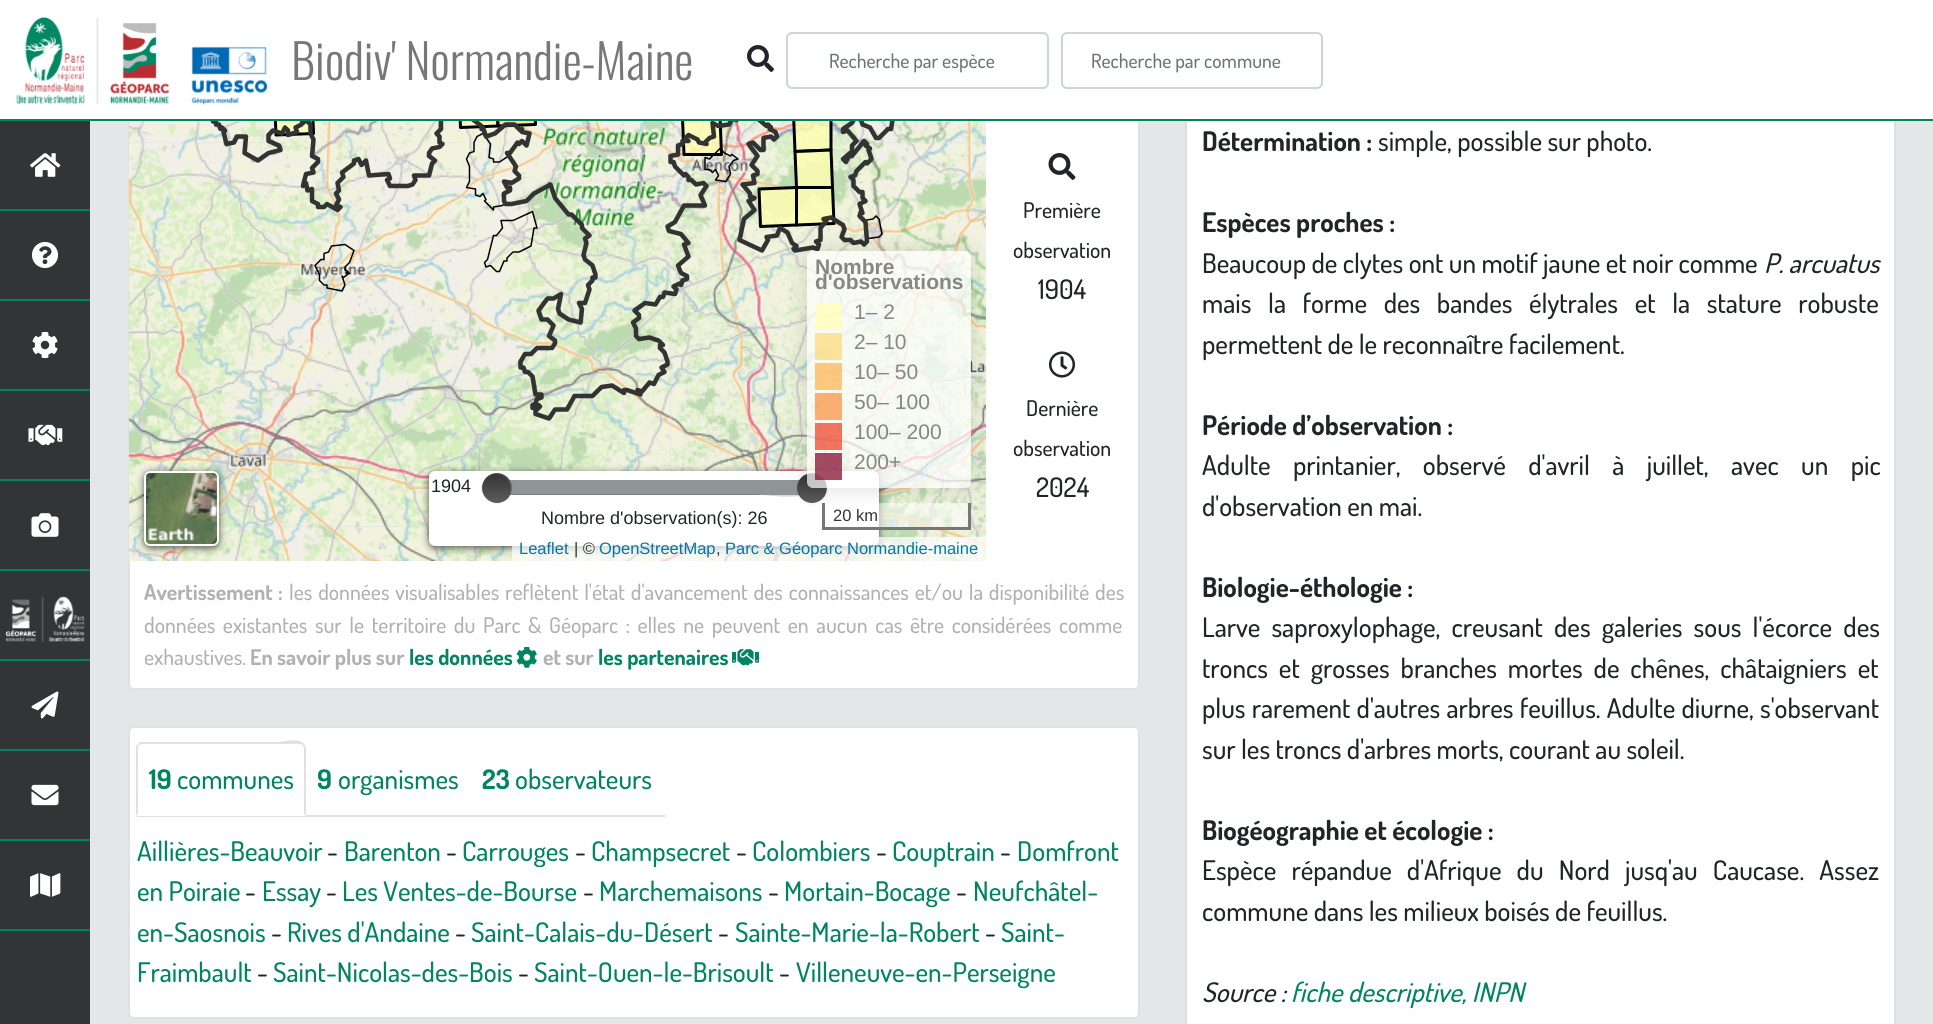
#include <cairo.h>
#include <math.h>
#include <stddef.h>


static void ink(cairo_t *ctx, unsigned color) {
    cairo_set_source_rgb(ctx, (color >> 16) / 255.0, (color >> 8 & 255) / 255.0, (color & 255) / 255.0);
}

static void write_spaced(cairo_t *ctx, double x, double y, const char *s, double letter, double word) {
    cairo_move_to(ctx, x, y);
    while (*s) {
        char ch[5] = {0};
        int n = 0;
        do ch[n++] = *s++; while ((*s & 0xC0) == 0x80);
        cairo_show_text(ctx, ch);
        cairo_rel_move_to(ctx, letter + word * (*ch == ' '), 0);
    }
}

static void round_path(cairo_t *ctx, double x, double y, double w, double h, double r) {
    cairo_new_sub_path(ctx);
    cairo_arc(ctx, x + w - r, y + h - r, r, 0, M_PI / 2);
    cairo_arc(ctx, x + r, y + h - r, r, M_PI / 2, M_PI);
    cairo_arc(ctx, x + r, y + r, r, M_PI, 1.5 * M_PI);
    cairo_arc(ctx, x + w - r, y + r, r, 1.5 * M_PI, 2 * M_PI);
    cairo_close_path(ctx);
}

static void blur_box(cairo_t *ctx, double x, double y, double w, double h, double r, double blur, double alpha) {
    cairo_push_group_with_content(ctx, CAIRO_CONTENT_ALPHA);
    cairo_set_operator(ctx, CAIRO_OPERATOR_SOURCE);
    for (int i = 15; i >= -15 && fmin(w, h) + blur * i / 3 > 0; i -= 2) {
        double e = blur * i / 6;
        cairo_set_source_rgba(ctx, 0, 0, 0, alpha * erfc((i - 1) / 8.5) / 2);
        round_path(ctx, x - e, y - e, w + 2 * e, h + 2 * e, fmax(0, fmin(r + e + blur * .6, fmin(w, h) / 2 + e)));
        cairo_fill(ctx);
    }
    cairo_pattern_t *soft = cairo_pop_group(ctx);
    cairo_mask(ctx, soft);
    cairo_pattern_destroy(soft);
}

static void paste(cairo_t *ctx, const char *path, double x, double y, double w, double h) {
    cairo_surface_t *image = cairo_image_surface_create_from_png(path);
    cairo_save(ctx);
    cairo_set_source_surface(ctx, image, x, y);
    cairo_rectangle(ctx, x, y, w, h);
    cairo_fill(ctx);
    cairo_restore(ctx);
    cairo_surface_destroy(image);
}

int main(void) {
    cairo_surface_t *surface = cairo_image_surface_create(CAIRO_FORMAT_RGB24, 1933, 1024);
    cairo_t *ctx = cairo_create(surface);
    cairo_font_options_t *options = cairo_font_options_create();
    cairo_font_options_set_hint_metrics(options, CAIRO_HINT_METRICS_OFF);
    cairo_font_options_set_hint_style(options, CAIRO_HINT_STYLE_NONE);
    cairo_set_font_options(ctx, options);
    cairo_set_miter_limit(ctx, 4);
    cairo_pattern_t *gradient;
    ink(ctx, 0xE3E7E8);
    cairo_paint(ctx);
    ink(ctx, 0xFFFFFF);
    round_path(ctx, 128, -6, 1012, 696, 6);
    cairo_fill(ctx);
    round_path(ctx, 129, -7, 1010, 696, 5);
    cairo_set_source_rgba(ctx, 0, 0, 0, 0.12);
    cairo_stroke(ctx);
    ink(ctx, 0xFFFFFF);
    cairo_rectangle(ctx, 1187, 121, 707, 903);
    cairo_fill(ctx);
    cairo_rectangle(ctx, 1186, -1, 709, 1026);
    ink(ctx, 0xDFDFDF);
    cairo_stroke(ctx);
    ink(ctx, 0xFFFFFF);
    cairo_rectangle(ctx, 0, 0, 1933, 119);
    cairo_fill(ctx);
    ink(ctx, 0x008461);
    cairo_rectangle(ctx, 0, 119, 1933, 2);
    cairo_fill(ctx);
    paste(ctx, "media/1.png", 16, 17, 252, 88);
    cairo_select_font_face(ctx, "Oswald Light", CAIRO_FONT_SLANT_NORMAL, CAIRO_FONT_WEIGHT_NORMAL);
    cairo_set_font_size(ctx, 48);
    ink(ctx, 0x777777);
    cairo_move_to(ctx, 291, 80);
    cairo_show_text(ctx, "Biodiv' Normandie-Maine");
    paste(ctx, "media/2.png", 747, 45, 27, 27);
    round_path(ctx, 787, 33, 261, 55, 5);
    ink(ctx, 0xCED4DA);
    cairo_stroke(ctx);
    cairo_select_font_face(ctx, "Dosis Medium", CAIRO_FONT_SLANT_NORMAL, CAIRO_FONT_WEIGHT_NORMAL);
    cairo_set_font_size(ctx, 19.5);
    ink(ctx, 0x6C757D);
    cairo_move_to(ctx, 829, 68);
    cairo_show_text(ctx, "Recherche par espèce");
    round_path(ctx, 1062, 33, 260, 55, 5);
    ink(ctx, 0xCED4DA);
    cairo_stroke(ctx);
    ink(ctx, 0x6C757D);
    cairo_move_to(ctx, 1091, 68);
    cairo_show_text(ctx, "Recherche par commune");
    ink(ctx, 0x323535);
    cairo_rectangle(ctx, 0, 121, 90, 903);
    cairo_fill(ctx);
    ink(ctx, 0x008461);
    cairo_rectangle(ctx, 0, 209, 90, 2);
    cairo_fill(ctx);
    paste(ctx, "media/3.png", 30, 153, 31, 24);
    cairo_rectangle(ctx, 0, 299, 90, 2);
    cairo_fill(ctx);
    paste(ctx, "media/4.png", 31, 241, 28, 28);
    cairo_rectangle(ctx, 0, 389, 90, 2);
    cairo_fill(ctx);
    paste(ctx, "media/5.png", 32, 331, 26, 28);
    cairo_rectangle(ctx, 0, 479, 90, 2);
    cairo_fill(ctx);
    paste(ctx, "media/6.png", 28, 424, 35, 22);
    cairo_rectangle(ctx, 0, 569, 90, 2);
    cairo_fill(ctx);
    paste(ctx, "media/7.png", 31, 513, 28, 24);
    cairo_rectangle(ctx, 0, 659, 90, 2);
    cairo_fill(ctx);
    paste(ctx, "media/8.png", 5, 596, 80, 46);
    cairo_rectangle(ctx, 0, 749, 90, 2);
    cairo_fill(ctx);
    paste(ctx, "media/9.png", 31, 691, 28, 28);
    cairo_rectangle(ctx, 0, 839, 90, 2);
    cairo_fill(ctx);
    paste(ctx, "media/10.png", 31, 784, 28, 22);
    cairo_rectangle(ctx, 0, 929, 90, 2);
    cairo_fill(ctx);
    paste(ctx, "media/11.png", 30, 873, 31, 24);
    ink(ctx, 0xDDDDDD);
    cairo_rectangle(ctx, 129, 142, 857, 385);
    cairo_fill(ctx);
    paste(ctx, "media/13.png", 287, 121, 384, 22);
    paste(ctx, "media/16.png", 286, 142, 385, 385);
    paste(ctx, "media/12.png", 129, 121, 158, 22);
    paste(ctx, "media/14.png", 671, 121, 315, 22);
    paste(ctx, "media/15.png", 129, 143, 158, 384);
    paste(ctx, "media/17.png", 671, 143, 315, 384);
    paste(ctx, "media/18.png", 129, 527, 158, 34);
    paste(ctx, "media/19.png", 287, 527, 384, 34);
    paste(ctx, "media/20.png", 671, 527, 315, 34);
    paste(ctx, "media/21.png", 210, 121, 685, 300);
    ink(ctx, 0x000000);
    blur_box(ctx, 429, 473, 450, 75, 6, 4, 0.65);
    ink(ctx, 0xFFFFFF);
    round_path(ctx, 430, 472, 448, 73, 5);
    cairo_fill_preserve(ctx);
    cairo_stroke(ctx);
    ink(ctx, 0x909596);
    cairo_rectangle(ctx, 509, 480, 291, 15);
    cairo_fill(ctx);
    cairo_set_source_rgba(ctx, 0, 0, 0, 0.15);
    cairo_new_path(ctx);
    cairo_move_to(ctx, 498, 492);
    cairo_curve_to(ctx, 499, 494, 501, 495, 503, 495);
    cairo_line_to(ctx, 806, 495);
    cairo_curve_to(ctx, 809, 495, 812, 492, 812, 489);
    cairo_line_to(ctx, 812, 488);
    cairo_curve_to(ctx, 812, 503, 756, 494, 755, 494);
    cairo_line_to(ctx, 501, 494);
    cairo_close_path(ctx);
    cairo_fill(ctx);
    ink(ctx, 0x000000);
    blur_box(ctx, 797, 474, 30, 30, 15, 1.5, 0.05);
    gradient = cairo_pattern_create_linear(812, 473, 812, 503);
    cairo_pattern_add_color_stop_rgba(gradient, 0, 0.2, 0.2, 0.2, 1);
    cairo_pattern_add_color_stop_rgba(gradient, 1, 0.365, 0.365, 0.365, 1);
    cairo_set_source(ctx, gradient);
    cairo_pattern_destroy(gradient);
    cairo_arc(ctx, 812, 488, 15, 0, 2 * M_PI);
    cairo_fill(ctx);
    cairo_set_source_rgba(ctx, 1, 1, 1, 0.2);
    cairo_new_path(ctx);
    cairo_move_to(ctx, 812, 474);
    cairo_curve_to(ctx, 824.5, 474, 828.5, 486.5, 825, 495.5);
    cairo_curve_to(ctx, 833.5, 481, 814, 465, 801.5, 477.5);
    cairo_curve_to(ctx, 798.5, 480.5, 797, 484.5, 797, 488.5);
    cairo_curve_to(ctx, 797, 481, 802, 474, 812, 474);
    cairo_close_path(ctx);
    cairo_fill(ctx);
    cairo_save(ctx);
    cairo_set_fill_rule(ctx, CAIRO_FILL_RULE_EVEN_ODD);
    cairo_new_path(ctx);
    cairo_move_to(ctx, 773, 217);
    cairo_line_to(ctx, 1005, 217);
    cairo_line_to(ctx, 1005, 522);
    cairo_line_to(ctx, 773, 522);
    cairo_close_path(ctx);
    cairo_move_to(ctx, 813, 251);
    cairo_line_to(ctx, 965, 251);
    cairo_curve_to(ctx, 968.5, 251, 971, 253.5, 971, 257);
    cairo_line_to(ctx, 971, 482);
    cairo_curve_to(ctx, 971, 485.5, 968.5, 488, 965, 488);
    cairo_line_to(ctx, 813, 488);
    cairo_curve_to(ctx, 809.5, 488, 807, 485.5, 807, 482);
    cairo_line_to(ctx, 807, 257);
    cairo_curve_to(ctx, 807, 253.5, 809.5, 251, 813, 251);
    cairo_close_path(ctx);
    cairo_clip(ctx);
    ink(ctx, 0x000000);
    blur_box(ctx, 807, 251, 164, 237, 6, 11, 0.14);
    cairo_restore(ctx);
    cairo_set_source_rgba(ctx, 1, 1, 1, 0.7);
    round_path(ctx, 807, 251, 164, 237, 6);
    cairo_fill(ctx);
    cairo_select_font_face(ctx, "Liberation Sans", CAIRO_FONT_SLANT_NORMAL, CAIRO_FONT_WEIGHT_BOLD);
    cairo_set_font_size(ctx, 21);
    ink(ctx, 0x868785);
    cairo_move_to(ctx, 815, 274);
    cairo_show_text(ctx, "Nombre");
    cairo_move_to(ctx, 815, 289);
    cairo_show_text(ctx, "d'observations");
    cairo_set_source_rgba(ctx, 1, 1, 0.698, 0.7);
    cairo_rectangle(ctx, 815, 303, 27, 27);
    cairo_fill(ctx);
    cairo_select_font_face(ctx, "Liberation Sans", CAIRO_FONT_SLANT_NORMAL, CAIRO_FONT_WEIGHT_NORMAL);
    ink(ctx, 0x868785);
    cairo_move_to(ctx, 854, 319);
    cairo_show_text(ctx, "1– 2");
    cairo_set_source_rgba(ctx, 0.996, 0.851, 0.463, 0.7);
    cairo_rectangle(ctx, 815, 333, 27, 27);
    cairo_fill(ctx);
    ink(ctx, 0x868785);
    cairo_move_to(ctx, 854, 349);
    cairo_show_text(ctx, "2– 10");
    cairo_set_source_rgba(ctx, 0.996, 0.698, 0.298, 0.7);
    cairo_rectangle(ctx, 815, 363, 27, 27);
    cairo_fill(ctx);
    ink(ctx, 0x868785);
    cairo_move_to(ctx, 854, 379);
    cairo_show_text(ctx, "10– 50");
    cairo_set_source_rgba(ctx, 0.992, 0.553, 0.235, 0.7);
    cairo_rectangle(ctx, 815, 393, 27, 27);
    cairo_fill(ctx);
    ink(ctx, 0x868785);
    cairo_move_to(ctx, 854, 409);
    cairo_show_text(ctx, "50– 100");
    cairo_set_source_rgba(ctx, 0.941, 0.231, 0.125, 0.7);
    cairo_rectangle(ctx, 815, 423, 27, 27);
    cairo_fill(ctx);
    ink(ctx, 0x868785);
    cairo_move_to(ctx, 854, 439);
    cairo_show_text(ctx, "100– 200");
    cairo_set_source_rgba(ctx, 0.502, 0, 0.149, 0.7);
    cairo_rectangle(ctx, 815, 453, 27, 27);
    cairo_fill(ctx);
    ink(ctx, 0x868785);
    cairo_move_to(ctx, 854, 469);
    cairo_show_text(ctx, "200+");
    cairo_set_source_rgba(ctx, 1, 1, 1, 0.5);
    cairo_rectangle(ctx, 879, 503, 89, 24);
    cairo_fill(ctx);
    ink(ctx, 0x777777);
    cairo_rectangle(ctx, 968, 503, 3, 27);
    cairo_fill(ctx);
    cairo_rectangle(ctx, 822, 527, 149, 3);
    cairo_fill(ctx);
    cairo_rectangle(ctx, 822, 503, 3, 27);
    cairo_fill(ctx);
    cairo_set_font_size(ctx, 16.5);
    ink(ctx, 0x333333);
    cairo_move_to(ctx, 833, 521);
    cairo_show_text(ctx, "20 km");
    cairo_set_source_rgba(ctx, 1, 1, 1, 0.7);
    cairo_rectangle(ctx, 512, 537, 474, 24);
    cairo_fill(ctx);
    ink(ctx, 0x0078A8);
    cairo_move_to(ctx, 519, 554);
    cairo_show_text(ctx, "Leaflet");
    ink(ctx, 0x333333);
    cairo_move_to(ctx, 574, 554);
    cairo_show_text(ctx, "| ©");
    ink(ctx, 0x0078A8);
    cairo_move_to(ctx, 599, 554);
    cairo_show_text(ctx, "OpenStreetMap");
    ink(ctx, 0x333333);
    cairo_move_to(ctx, 716, 554);
    cairo_show_text(ctx, ",");
    ink(ctx, 0x0078A8);
    cairo_move_to(ctx, 725, 554);
    cairo_show_text(ctx, "Parc & Géoparc Normandie-maine");
    ink(ctx, 0x000000);
    blur_box(ctx, 144, 473, 75, 75, 6, 4, 0.65);
    paste(ctx, "media/22.png", 144, 471, 75, 75);
    round_path(ctx, 145, 472, 73, 73, 5);
    ink(ctx, 0xFFFFFF);
    cairo_stroke(ctx);
    cairo_set_font_size(ctx, 18);
    ink(ctx, 0x212529);
    cairo_move_to(ctx, 431, 492);
    cairo_show_text(ctx, "1904");
    ink(ctx, 0x000000);
    blur_box(ctx, 482, 474, 30, 30, 15, 1.5, 0.05);
    gradient = cairo_pattern_create_linear(497, 473, 497, 503);
    cairo_pattern_add_color_stop_rgba(gradient, 0, 0.2, 0.2, 0.2, 1);
    cairo_pattern_add_color_stop_rgba(gradient, 1, 0.365, 0.365, 0.365, 1);
    cairo_set_source(ctx, gradient);
    cairo_pattern_destroy(gradient);
    cairo_arc(ctx, 497, 488, 15, 0, 2 * M_PI);
    cairo_fill(ctx);
    cairo_set_source_rgba(ctx, 1, 1, 1, 0.2);
    cairo_new_path(ctx);
    cairo_move_to(ctx, 496, 474);
    cairo_curve_to(ctx, 510, 474, 514, 488.5, 508.5, 497.5);
    cairo_curve_to(ctx, 518.5, 485.5, 505.5, 468, 491, 474.5);
    cairo_curve_to(ctx, 488, 475.5, 485.5, 478, 483.5, 481);
    cairo_curve_to(ctx, 486, 477, 490, 474, 496, 474);
    cairo_close_path(ctx);
    cairo_fill(ctx);
    ink(ctx, 0x212529);
    cairo_move_to(ctx, 541, 524);
    cairo_show_text(ctx, "Nombre d'observation(s): 26");
    paste(ctx, "media/23.png", 1048, 153, 28, 27);
    cairo_select_font_face(ctx, "Dosis Medium", CAIRO_FONT_SLANT_NORMAL, CAIRO_FONT_WEIGHT_NORMAL);
    cairo_set_font_size(ctx, 21.6);
    cairo_move_to(ctx, 1023, 218);
    cairo_show_text(ctx, "Première");
    cairo_move_to(ctx, 1013, 258);
    cairo_show_text(ctx, "observation");
    cairo_set_font_size(ctx, 27);
    cairo_move_to(ctx, 1038, 299);
    cairo_show_text(ctx, "1904");
    paste(ctx, "media/24.png", 1048, 351, 28, 27);
    cairo_set_font_size(ctx, 21.6);
    cairo_move_to(ctx, 1026, 416);
    cairo_show_text(ctx, "Dernière");
    cairo_move_to(ctx, 1013, 456);
    cairo_show_text(ctx, "observation");
    cairo_set_font_size(ctx, 27);
    cairo_move_to(ctx, 1036, 497);
    cairo_show_text(ctx, "2024");
    cairo_select_font_face(ctx, "Dosis", CAIRO_FONT_SLANT_NORMAL, CAIRO_FONT_WEIGHT_BOLD);
    cairo_set_font_size(ctx, 21.6);
    ink(ctx, 0xB1B1B1);
    write_spaced(ctx, 144, 600, "Avertissement :", 0, 1);
    cairo_select_font_face(ctx, "Dosis Medium", CAIRO_FONT_SLANT_NORMAL, CAIRO_FONT_WEIGHT_NORMAL);
    write_spaced(ctx, 289, 600, "les données visualisables reflètent l'état d'avancement des connaissances et/ou la disponibilité des", 0, 1.5);
    write_spaced(ctx, 144, 633, "données existantes sur le territoire du Parc & Géoparc : elles ne peuvent en aucun cas être considérées comme", 0, 3.25);
    cairo_move_to(ctx, 144, 665);
    cairo_show_text(ctx, "exhaustives.");
    cairo_select_font_face(ctx, "Dosis", CAIRO_FONT_SLANT_NORMAL, CAIRO_FONT_WEIGHT_BOLD);
    cairo_move_to(ctx, 250, 665);
    cairo_show_text(ctx, "En savoir plus sur");
    ink(ctx, 0x008461);
    cairo_move_to(ctx, 409, 665);
    cairo_show_text(ctx, "les données");
    paste(ctx, "media/25.png", 516, 646, 21, 22);
    ink(ctx, 0xB1B1B1);
    cairo_move_to(ctx, 543, 665);
    cairo_show_text(ctx, "et sur");
    ink(ctx, 0x008461);
    cairo_move_to(ctx, 598, 665);
    cairo_show_text(ctx, "les partenaires");
    paste(ctx, "media/26.png", 732, 649, 27, 17);
    ink(ctx, 0xFFFFFF);
    round_path(ctx, 128, 726, 1012, 293, 6);
    cairo_fill(ctx);
    round_path(ctx, 129, 727, 1010, 291, 5);
    cairo_set_source_rgba(ctx, 0, 0, 0, 0.12);
    cairo_stroke(ctx);
    ink(ctx, 0xDEE2E6);
    cairo_rectangle(ctx, 137, 815, 528, 2);
    cairo_fill(ctx);
    ink(ctx, 0xFFFFFF);
    cairo_new_path(ctx);
    cairo_move_to(ctx, 143, 743);
    cairo_line_to(ctx, 300, 743);
    cairo_curve_to(ctx, 303.5, 743, 306, 745.5, 306, 749);
    cairo_line_to(ctx, 306, 816);
    cairo_line_to(ctx, 137, 816);
    cairo_line_to(ctx, 137, 749);
    cairo_curve_to(ctx, 137, 745.5, 139.5, 743, 143, 743);
    cairo_close_path(ctx);
    cairo_fill(ctx);
    ink(ctx, 0xDEE2E6);
    cairo_new_path(ctx);
    cairo_move_to(ctx, 142, 744);
    cairo_line_to(ctx, 139, 745);
    cairo_line_to(ctx, 138, 744);
    cairo_line_to(ctx, 140, 742);
    cairo_line_to(ctx, 275, 742);
    cairo_curve_to(ctx, 285, 742, 298, 737, 304, 744);
    cairo_line_to(ctx, 303, 746);
    cairo_curve_to(ctx, 302, 745, 301, 744, 300, 744);
    cairo_close_path(ctx);
    cairo_fill(ctx);
    cairo_new_path(ctx);
    cairo_move_to(ctx, 306, 816);
    cairo_line_to(ctx, 306, 748);
    cairo_curve_to(ctx, 306, 747, 305, 745, 304, 744);
    cairo_line_to(ctx, 303, 746);
    cairo_line_to(ctx, 304, 748);
    cairo_line_to(ctx, 304, 814);
    cairo_close_path(ctx);
    cairo_fill(ctx);
    ink(ctx, 0xFFFFFF);
    cairo_new_path(ctx);
    cairo_move_to(ctx, 306, 816);
    cairo_line_to(ctx, 304, 814);
    cairo_line_to(ctx, 138, 814);
    cairo_line_to(ctx, 136, 816);
    cairo_close_path(ctx);
    cairo_fill(ctx);
    ink(ctx, 0xDEE2E6);
    cairo_new_path(ctx);
    cairo_move_to(ctx, 136, 816);
    cairo_line_to(ctx, 136, 746);
    cairo_line_to(ctx, 138, 744);
    cairo_line_to(ctx, 139, 745);
    cairo_line_to(ctx, 138, 748);
    cairo_line_to(ctx, 138, 814);
    cairo_close_path(ctx);
    cairo_fill(ctx);
    cairo_set_font_size(ctx, 27);
    ink(ctx, 0x008461);
    cairo_move_to(ctx, 149, 789);
    cairo_show_text(ctx, "19");
    cairo_select_font_face(ctx, "Dosis Medium", CAIRO_FONT_SLANT_NORMAL, CAIRO_FONT_WEIGHT_NORMAL);
    cairo_move_to(ctx, 177, 789);
    cairo_show_text(ctx, "communes");
    cairo_select_font_face(ctx, "Dosis", CAIRO_FONT_SLANT_NORMAL, CAIRO_FONT_WEIGHT_BOLD);
    cairo_move_to(ctx, 317, 789);
    cairo_show_text(ctx, "9");
    cairo_select_font_face(ctx, "Dosis Medium", CAIRO_FONT_SLANT_NORMAL, CAIRO_FONT_WEIGHT_NORMAL);
    cairo_move_to(ctx, 338, 789);
    cairo_show_text(ctx, "organismes");
    cairo_select_font_face(ctx, "Dosis", CAIRO_FONT_SLANT_NORMAL, CAIRO_FONT_WEIGHT_BOLD);
    cairo_move_to(ctx, 482, 789);
    cairo_show_text(ctx, "23");
    cairo_select_font_face(ctx, "Dosis Medium", CAIRO_FONT_SLANT_NORMAL, CAIRO_FONT_WEIGHT_NORMAL);
    cairo_move_to(ctx, 515, 789);
    cairo_show_text(ctx, "observateurs");
    cairo_move_to(ctx, 137, 861);
    cairo_show_text(ctx, "Aillières-Beauvoir");
    ink(ctx, 0x212529);
    cairo_move_to(ctx, 327, 861);
    cairo_show_text(ctx, "-");
    ink(ctx, 0x008461);
    cairo_move_to(ctx, 344, 861);
    cairo_show_text(ctx, "Barenton");
    ink(ctx, 0x212529);
    cairo_move_to(ctx, 446, 861);
    cairo_show_text(ctx, "-");
    ink(ctx, 0x008461);
    cairo_move_to(ctx, 462, 861);
    cairo_show_text(ctx, "Carrouges");
    ink(ctx, 0x212529);
    cairo_move_to(ctx, 575, 861);
    cairo_show_text(ctx, "-");
    ink(ctx, 0x008461);
    cairo_move_to(ctx, 591, 861);
    cairo_show_text(ctx, "Champsecret");
    ink(ctx, 0x212529);
    cairo_move_to(ctx, 736, 861);
    cairo_show_text(ctx, "-");
    ink(ctx, 0x008461);
    cairo_move_to(ctx, 752, 861);
    cairo_show_text(ctx, "Colombiers");
    ink(ctx, 0x212529);
    cairo_move_to(ctx, 876, 861);
    cairo_show_text(ctx, "-");
    ink(ctx, 0x008461);
    cairo_move_to(ctx, 892, 861);
    cairo_show_text(ctx, "Couptrain");
    ink(ctx, 0x212529);
    cairo_move_to(ctx, 1000, 861);
    cairo_show_text(ctx, "-");
    ink(ctx, 0x008461);
    cairo_move_to(ctx, 1017, 861);
    cairo_show_text(ctx, "Domfront");
    cairo_move_to(ctx, 137, 901);
    cairo_show_text(ctx, "en Poiraie");
    ink(ctx, 0x212529);
    cairo_move_to(ctx, 245, 901);
    cairo_show_text(ctx, "-");
    ink(ctx, 0x008461);
    cairo_move_to(ctx, 262, 901);
    cairo_show_text(ctx, "Essay");
    ink(ctx, 0x212529);
    cairo_move_to(ctx, 326, 901);
    cairo_show_text(ctx, "-");
    ink(ctx, 0x008461);
    cairo_move_to(ctx, 342, 901);
    cairo_show_text(ctx, "Les Ventes-de-Bourse");
    ink(ctx, 0x212529);
    cairo_move_to(ctx, 583, 901);
    cairo_show_text(ctx, "-");
    ink(ctx, 0x008461);
    cairo_move_to(ctx, 599, 901);
    cairo_show_text(ctx, "Marchemaisons");
    ink(ctx, 0x212529);
    cairo_move_to(ctx, 768, 901);
    cairo_show_text(ctx, "-");
    ink(ctx, 0x008461);
    cairo_move_to(ctx, 784, 901);
    cairo_show_text(ctx, "Mortain-Bocage");
    ink(ctx, 0x212529);
    cairo_move_to(ctx, 956, 901);
    cairo_show_text(ctx, "-");
    ink(ctx, 0x008461);
    cairo_move_to(ctx, 973, 901);
    cairo_show_text(ctx, "Neufchâtel-");
    cairo_move_to(ctx, 137, 942);
    cairo_show_text(ctx, "en-Saosnois");
    ink(ctx, 0x212529);
    cairo_move_to(ctx, 271, 942);
    cairo_show_text(ctx, "-");
    ink(ctx, 0x008461);
    cairo_move_to(ctx, 287, 942);
    cairo_show_text(ctx, "Rives d'Andaine");
    ink(ctx, 0x212529);
    cairo_move_to(ctx, 455, 942);
    cairo_show_text(ctx, "-");
    ink(ctx, 0x008461);
    cairo_move_to(ctx, 471, 942);
    cairo_show_text(ctx, "Saint-Calais-du-Désert");
    ink(ctx, 0x212529);
    cairo_move_to(ctx, 718, 942);
    cairo_show_text(ctx, "-");
    ink(ctx, 0x008461);
    cairo_move_to(ctx, 735, 942);
    cairo_show_text(ctx, "Sainte-Marie-la-Robert");
    ink(ctx, 0x212529);
    cairo_move_to(ctx, 985, 942);
    cairo_show_text(ctx, "-");
    ink(ctx, 0x008461);
    cairo_move_to(ctx, 1001, 942);
    cairo_show_text(ctx, "Saint-");
    cairo_move_to(ctx, 137, 982);
    cairo_show_text(ctx, "Fraimbault");
    ink(ctx, 0x212529);
    cairo_move_to(ctx, 257, 982);
    cairo_show_text(ctx, "-");
    ink(ctx, 0x008461);
    cairo_move_to(ctx, 273, 982);
    cairo_show_text(ctx, "Saint-Nicolas-des-Bois");
    ink(ctx, 0x212529);
    cairo_move_to(ctx, 518, 982);
    cairo_show_text(ctx, "-");
    ink(ctx, 0x008461);
    cairo_move_to(ctx, 534, 982);
    cairo_show_text(ctx, "Saint-Ouen-le-Brisoult");
    ink(ctx, 0x212529);
    cairo_move_to(ctx, 779, 982);
    cairo_show_text(ctx, "-");
    ink(ctx, 0x008461);
    cairo_move_to(ctx, 796, 982);
    cairo_show_text(ctx, "Villeneuve-en-Perseigne");
    cairo_select_font_face(ctx, "Dosis", CAIRO_FONT_SLANT_NORMAL, CAIRO_FONT_WEIGHT_BOLD);
    ink(ctx, 0x212529);
    cairo_move_to(ctx, 1202, 151);
    cairo_show_text(ctx, "Détermination :");
    cairo_select_font_face(ctx, "Dosis Medium", CAIRO_FONT_SLANT_NORMAL, CAIRO_FONT_WEIGHT_NORMAL);
    cairo_move_to(ctx, 1378, 151);
    cairo_show_text(ctx, "simple, possible sur photo.");
    cairo_select_font_face(ctx, "Dosis", CAIRO_FONT_SLANT_NORMAL, CAIRO_FONT_WEIGHT_BOLD);
    cairo_move_to(ctx, 1202, 232);
    cairo_show_text(ctx, "Espèces proches :");
    cairo_select_font_face(ctx, "Dosis Medium", CAIRO_FONT_SLANT_NORMAL, CAIRO_FONT_WEIGHT_NORMAL);
    cairo_move_to(ctx, 1202, 273);
    cairo_show_text(ctx, "Beaucoup de clytes ont un motif jaune et noir comme");
    cairo_select_font_face(ctx, "Dosis Medium", CAIRO_FONT_SLANT_ITALIC, CAIRO_FONT_WEIGHT_NORMAL);
    cairo_move_to(ctx, 1764, 273);
    cairo_show_text(ctx, "P. arcuatus");
    cairo_select_font_face(ctx, "Dosis Medium", CAIRO_FONT_SLANT_NORMAL, CAIRO_FONT_WEIGHT_NORMAL);
    write_spaced(ctx, 1202, 313, "mais la forme des bandes élytrales et la stature robuste", 0, 11.25);
    cairo_move_to(ctx, 1202, 354);
    cairo_show_text(ctx, "permettent de le reconnaître facilement.");
    cairo_select_font_face(ctx, "Dosis", CAIRO_FONT_SLANT_NORMAL, CAIRO_FONT_WEIGHT_BOLD);
    cairo_move_to(ctx, 1202, 435);
    cairo_show_text(ctx, "Période d’observation :");
    cairo_select_font_face(ctx, "Dosis Medium", CAIRO_FONT_SLANT_NORMAL, CAIRO_FONT_WEIGHT_NORMAL);
    write_spaced(ctx, 1202, 475, "Adulte printanier, observé d'avril à juillet, avec un pic", 0, 17);
    cairo_move_to(ctx, 1202, 516);
    cairo_show_text(ctx, "d'observation en mai.");
    cairo_select_font_face(ctx, "Dosis", CAIRO_FONT_SLANT_NORMAL, CAIRO_FONT_WEIGHT_BOLD);
    cairo_move_to(ctx, 1202, 597);
    cairo_show_text(ctx, "Biologie-éthologie :");
    cairo_select_font_face(ctx, "Dosis Medium", CAIRO_FONT_SLANT_NORMAL, CAIRO_FONT_WEIGHT_NORMAL);
    write_spaced(ctx, 1202, 637, "Larve saproxylophage, creusant des galeries sous l'écorce des", 0, 5.75);
    write_spaced(ctx, 1202, 678, "troncs et grosses branches mortes de chênes, châtaigniers et", 0, 5.5);
    write_spaced(ctx, 1202, 718, "plus rarement d'autres arbres feuillus. Adulte diurne, s'observant", 0, 0.75);
    cairo_move_to(ctx, 1202, 759);
    cairo_show_text(ctx, "sur les troncs d'arbres morts, courant au soleil.");
    cairo_select_font_face(ctx, "Dosis", CAIRO_FONT_SLANT_NORMAL, CAIRO_FONT_WEIGHT_BOLD);
    cairo_move_to(ctx, 1202, 840);
    cairo_show_text(ctx, "Biogéographie et écologie :");
    cairo_select_font_face(ctx, "Dosis Medium", CAIRO_FONT_SLANT_NORMAL, CAIRO_FONT_WEIGHT_NORMAL);
    write_spaced(ctx, 1202, 880, "Espèce répandue d'Afrique du Nord jusq'au Caucase. Assez", 0, 9.75);
    cairo_move_to(ctx, 1202, 921);
    cairo_show_text(ctx, "commune dans les milieux boisés de feuillus.");
    cairo_select_font_face(ctx, "Dosis Medium", CAIRO_FONT_SLANT_ITALIC, CAIRO_FONT_WEIGHT_NORMAL);
    cairo_move_to(ctx, 1202, 1002);
    cairo_show_text(ctx, "Source :");
    ink(ctx, 0x008461);
    cairo_move_to(ctx, 1291, 1002);
    cairo_show_text(ctx, "fiche descriptive, INPN");
    cairo_surface_write_to_png(surface, "image.png");
    cairo_font_options_destroy(options);
    cairo_destroy(ctx);
    cairo_surface_destroy(surface);
    return 0;
}
